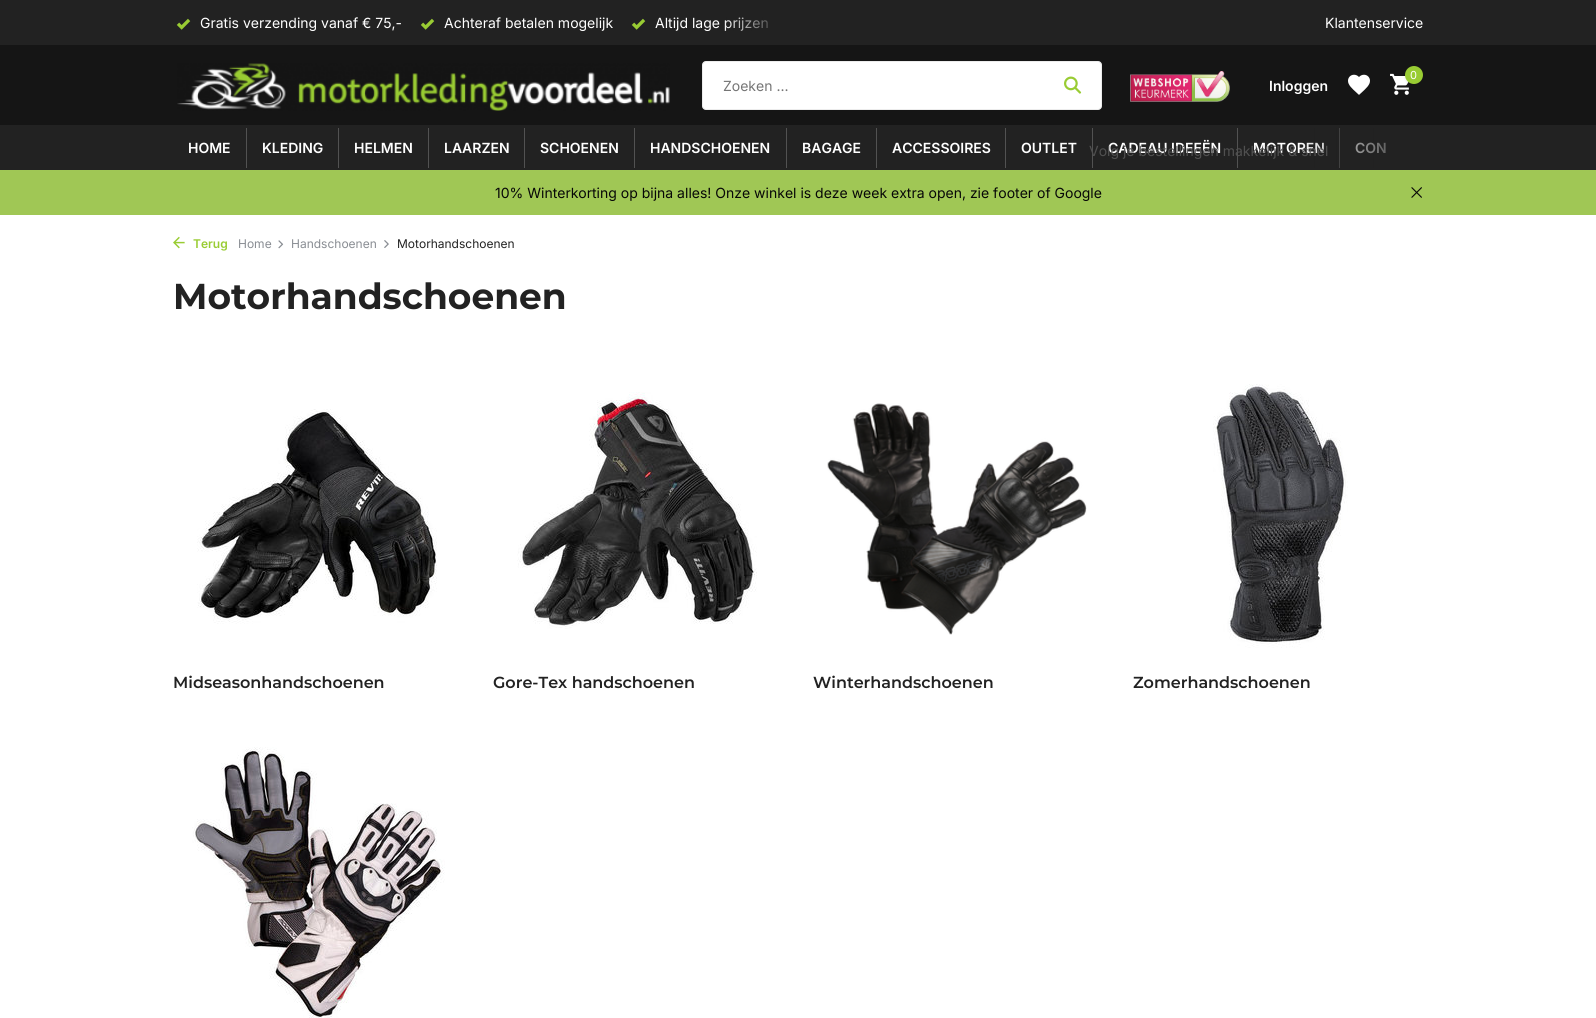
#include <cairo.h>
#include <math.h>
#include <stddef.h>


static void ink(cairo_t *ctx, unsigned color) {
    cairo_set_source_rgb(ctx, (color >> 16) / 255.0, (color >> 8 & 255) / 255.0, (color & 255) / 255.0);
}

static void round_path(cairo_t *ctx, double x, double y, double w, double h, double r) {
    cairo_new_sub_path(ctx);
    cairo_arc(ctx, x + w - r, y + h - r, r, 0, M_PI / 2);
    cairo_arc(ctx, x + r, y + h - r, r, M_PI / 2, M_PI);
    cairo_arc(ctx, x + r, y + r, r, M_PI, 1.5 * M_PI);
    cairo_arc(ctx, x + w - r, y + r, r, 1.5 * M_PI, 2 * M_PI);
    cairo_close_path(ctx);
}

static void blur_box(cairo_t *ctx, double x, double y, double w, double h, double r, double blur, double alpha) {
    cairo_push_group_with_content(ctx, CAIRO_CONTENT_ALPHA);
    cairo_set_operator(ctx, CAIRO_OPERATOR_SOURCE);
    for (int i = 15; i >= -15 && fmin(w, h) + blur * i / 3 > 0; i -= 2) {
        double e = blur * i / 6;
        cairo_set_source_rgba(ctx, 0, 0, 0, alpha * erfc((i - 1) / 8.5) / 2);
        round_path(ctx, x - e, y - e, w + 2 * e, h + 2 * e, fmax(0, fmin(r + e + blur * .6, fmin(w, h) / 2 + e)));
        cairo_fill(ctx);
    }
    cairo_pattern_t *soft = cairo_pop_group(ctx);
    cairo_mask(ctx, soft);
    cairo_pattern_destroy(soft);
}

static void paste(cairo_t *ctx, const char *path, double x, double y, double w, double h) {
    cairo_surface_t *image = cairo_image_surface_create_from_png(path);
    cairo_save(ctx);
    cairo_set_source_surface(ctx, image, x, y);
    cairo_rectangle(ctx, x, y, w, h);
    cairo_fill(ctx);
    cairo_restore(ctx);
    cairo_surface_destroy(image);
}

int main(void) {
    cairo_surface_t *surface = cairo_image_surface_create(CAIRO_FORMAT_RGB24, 1596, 1018);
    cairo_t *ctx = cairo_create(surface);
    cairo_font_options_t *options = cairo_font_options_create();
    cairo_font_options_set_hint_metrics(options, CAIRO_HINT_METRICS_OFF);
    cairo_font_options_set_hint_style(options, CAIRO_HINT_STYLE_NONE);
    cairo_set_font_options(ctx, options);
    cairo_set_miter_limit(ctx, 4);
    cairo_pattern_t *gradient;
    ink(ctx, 0xFFFFFF);
    cairo_paint(ctx);
    ink(ctx, 0x222222);
    cairo_rectangle(ctx, 0, 0, 1596, 45);
    cairo_fill(ctx);
    paste(ctx, "media/1.png", 176, 18, 15, 12);
    cairo_select_font_face(ctx, "Inter", CAIRO_FONT_SLANT_NORMAL, CAIRO_FONT_WEIGHT_NORMAL);
    cairo_set_font_size(ctx, 14);
    ink(ctx, 0xFFFFFF);
    cairo_move_to(ctx, 200, 28);
    cairo_show_text(ctx, "Gratis verzending vanaf € 75,-");
    paste(ctx, "media/1.png", 420, 18, 15, 12);
    cairo_move_to(ctx, 444, 28);
    cairo_show_text(ctx, "Achteraf betalen mogelijk");
    paste(ctx, "media/1.png", 631, 18, 15, 12);
    cairo_move_to(ctx, 655, 28);
    cairo_show_text(ctx, "Altijd lage prijzen");
    gradient = cairo_pattern_create_linear(783, 23, 722, 22);
    cairo_pattern_add_color_stop_rgba(gradient, 0, 0.133, 0.133, 0.133, 1);
    cairo_pattern_add_color_stop_rgba(gradient, 1, 0.133, 0.133, 0.133, 0);
    cairo_set_source(ctx, gradient);
    cairo_pattern_destroy(gradient);
    cairo_rectangle(ctx, 725, 17, 43, 14);
    cairo_fill(ctx);
    ink(ctx, 0xFFFFFF);
    cairo_move_to(ctx, 1325, 28);
    cairo_show_text(ctx, "Klantenservice");
    ink(ctx, 0x151515);
    cairo_rectangle(ctx, 0, 45, 1596, 80);
    cairo_fill(ctx);
    paste(ctx, "media/2.png", 177, 63, 493, 48);
    cairo_select_font_face(ctx, "Inter SemiBold", CAIRO_FONT_SLANT_NORMAL, CAIRO_FONT_WEIGHT_NORMAL);
    ink(ctx, 0xFFFFFF);
    cairo_move_to(ctx, 1269, 91);
    cairo_show_text(ctx, "Inloggen");
    ink(ctx, 0x222222);
    cairo_rectangle(ctx, 0, 125, 1596, 45);
    cairo_fill(ctx);
    ink(ctx, 0x525252);
    cairo_rectangle(ctx, 1339, 128, 1, 40);
    cairo_fill(ctx);
    ink(ctx, 0xFFFFFF);
    cairo_move_to(ctx, 1253, 153);
    cairo_show_text(ctx, "MOTOREN");
    cairo_move_to(ctx, 1355, 153);
    cairo_show_text(ctx, "CON");
    gradient = cairo_pattern_create_linear(1423, 148, 1298, 148);
    cairo_pattern_add_color_stop_rgba(gradient, 0, 0.133, 0.133, 0.133, 1);
    cairo_pattern_add_color_stop_rgba(gradient, 1, 0.133, 0.133, 0.133, 0);
    cairo_set_source(ctx, gradient);
    cairo_pattern_destroy(gradient);
    cairo_rectangle(ctx, 1301, 128, 86, 40);
    cairo_fill(ctx);
    ink(ctx, 0x525252);
    cairo_rectangle(ctx, 1092, 128, 1, 40);
    cairo_fill(ctx);
    cairo_rectangle(ctx, 1237, 128, 1, 40);
    cairo_fill(ctx);
    ink(ctx, 0xFFFFFF);
    cairo_move_to(ctx, 1108, 153);
    cairo_show_text(ctx, "CADEAU IDEEËN");
    cairo_select_font_face(ctx, "Inter", CAIRO_FONT_SLANT_NORMAL, CAIRO_FONT_WEIGHT_NORMAL);
    ink(ctx, 0x505050);
    cairo_move_to(ctx, 1089, 156);
    cairo_show_text(ctx, "Volg je bestellingen makkelijk & snel");
    paste(ctx, "media/3.png", 1348, 74, 22, 21);
    paste(ctx, "media/4.png", 1390, 73, 19, 22);
    ink(ctx, 0x000000);
    blur_box(ctx, 1405, 68, 18, 18, 9, 1, 0.06);
    ink(ctx, 0x99CC33);
    cairo_arc(ctx, 1414, 75, 9, 0, 2 * M_PI);
    cairo_fill(ctx);
    cairo_set_font_size(ctx, 11);
    ink(ctx, 0xFFFFFF);
    cairo_move_to(ctx, 1410, 79);
    cairo_show_text(ctx, "0");
    round_path(ctx, 702.5, 61.5, 399, 48, 3.5);
    cairo_fill_preserve(ctx);
    ink(ctx, 0xECECEC);
    cairo_set_line_width(ctx, 1);
    cairo_stroke(ctx);
    cairo_set_font_size(ctx, 14);
    ink(ctx, 0x757575);
    cairo_move_to(ctx, 723, 91);
    cairo_show_text(ctx, "Zoeken ...");
    paste(ctx, "media/5.png", 1064, 76, 18, 18);
    paste(ctx, "media/6.png", 1130, 71, 100, 31);
    ink(ctx, 0x525252);
    cairo_rectangle(ctx, 246, 128, 1, 40);
    cairo_fill(ctx);
    cairo_select_font_face(ctx, "Inter SemiBold", CAIRO_FONT_SLANT_NORMAL, CAIRO_FONT_WEIGHT_NORMAL);
    ink(ctx, 0xFFFFFF);
    cairo_move_to(ctx, 188, 153);
    cairo_show_text(ctx, "HOME");
    ink(ctx, 0x525252);
    cairo_rectangle(ctx, 338, 128, 1, 40);
    cairo_fill(ctx);
    ink(ctx, 0xFFFFFF);
    cairo_move_to(ctx, 262, 153);
    cairo_show_text(ctx, "KLEDING");
    ink(ctx, 0x525252);
    cairo_rectangle(ctx, 428, 128, 1, 40);
    cairo_fill(ctx);
    ink(ctx, 0xFFFFFF);
    cairo_move_to(ctx, 354, 153);
    cairo_show_text(ctx, "HELMEN");
    ink(ctx, 0x525252);
    cairo_rectangle(ctx, 524, 128, 1, 40);
    cairo_fill(ctx);
    ink(ctx, 0xFFFFFF);
    cairo_move_to(ctx, 444, 153);
    cairo_show_text(ctx, "LAARZEN");
    ink(ctx, 0x525252);
    cairo_rectangle(ctx, 634, 128, 1, 40);
    cairo_fill(ctx);
    ink(ctx, 0xFFFFFF);
    cairo_move_to(ctx, 540, 153);
    cairo_show_text(ctx, "SCHOENEN");
    ink(ctx, 0x525252);
    cairo_rectangle(ctx, 786, 128, 1, 40);
    cairo_fill(ctx);
    ink(ctx, 0xFFFFFF);
    cairo_move_to(ctx, 650, 153);
    cairo_show_text(ctx, "HANDSCHOENEN");
    ink(ctx, 0x525252);
    cairo_rectangle(ctx, 876, 128, 1, 40);
    cairo_fill(ctx);
    ink(ctx, 0xFFFFFF);
    cairo_move_to(ctx, 802, 153);
    cairo_show_text(ctx, "BAGAGE");
    ink(ctx, 0x525252);
    cairo_rectangle(ctx, 1005, 128, 1, 40);
    cairo_fill(ctx);
    ink(ctx, 0xFFFFFF);
    cairo_move_to(ctx, 892, 153);
    cairo_show_text(ctx, "ACCESSOIRES");
    cairo_move_to(ctx, 1021, 153);
    cairo_show_text(ctx, "OUTLET");
    ink(ctx, 0xA0C755);
    cairo_rectangle(ctx, 0, 170, 1596, 45);
    cairo_fill(ctx);
    cairo_select_font_face(ctx, "Inter", CAIRO_FONT_SLANT_NORMAL, CAIRO_FONT_WEIGHT_NORMAL);
    ink(ctx, 0x070707);
    cairo_move_to(ctx, 495, 198);
    cairo_show_text(ctx, "10% Winterkorting op bijna alles! Onze winkel is deze week extra open, zie footer of Google");
    paste(ctx, "media/7.png", 1411, 187, 11, 11);
    paste(ctx, "media/8.png", 173, 236, 12, 13);
    cairo_select_font_face(ctx, "Inter SemiBold", CAIRO_FONT_SLANT_NORMAL, CAIRO_FONT_WEIGHT_NORMAL);
    cairo_set_font_size(ctx, 12);
    ink(ctx, 0x99CC33);
    cairo_move_to(ctx, 193, 248);
    cairo_show_text(ctx, "Terug");
    cairo_select_font_face(ctx, "Inter", CAIRO_FONT_SLANT_NORMAL, CAIRO_FONT_WEIGHT_NORMAL);
    ink(ctx, 0x898D93);
    cairo_move_to(ctx, 238, 248);
    cairo_show_text(ctx, "Home");
    paste(ctx, "media/9.png", 278, 240, 6, 9);
    cairo_move_to(ctx, 291, 248);
    cairo_show_text(ctx, "Handschoenen");
    paste(ctx, "media/10.png", 384, 240, 5, 8);
    ink(ctx, 0x222222);
    cairo_move_to(ctx, 397, 248);
    cairo_show_text(ctx, "Motorhandschoenen");
    cairo_select_font_face(ctx, "Montserrat", CAIRO_FONT_SLANT_NORMAL, CAIRO_FONT_WEIGHT_BOLD);
    cairo_set_font_size(ctx, 36);
    cairo_move_to(ctx, 173, 309);
    cairo_show_text(ctx, "Motorhandschoenen");
    paste(ctx, "media/11.png", 197, 409, 240, 215);
    cairo_select_font_face(ctx, "Montserrat SemiBold", CAIRO_FONT_SLANT_NORMAL, CAIRO_FONT_WEIGHT_NORMAL);
    cairo_set_font_size(ctx, 16);
    cairo_move_to(ctx, 173, 688);
    cairo_show_text(ctx, "Midseasonhandschoenen");
    paste(ctx, "media/12.png", 517, 392, 240, 237);
    cairo_move_to(ctx, 493, 688);
    cairo_show_text(ctx, "Gore-Tex handschoenen");
    paste(ctx, "media/13.png", 827, 403, 260, 232);
    cairo_move_to(ctx, 813, 688);
    cairo_show_text(ctx, "Winterhandschoenen");
    paste(ctx, "media/14.png", 1213, 384, 135, 264);
    cairo_move_to(ctx, 1133, 688);
    cairo_show_text(ctx, "Zomerhandschoenen");
    paste(ctx, "media/15.png", 192, 747, 253, 271);
    cairo_surface_write_to_png(surface, "image.png");
    cairo_font_options_destroy(options);
    cairo_destroy(ctx);
    cairo_surface_destroy(surface);
    return 0;
}
